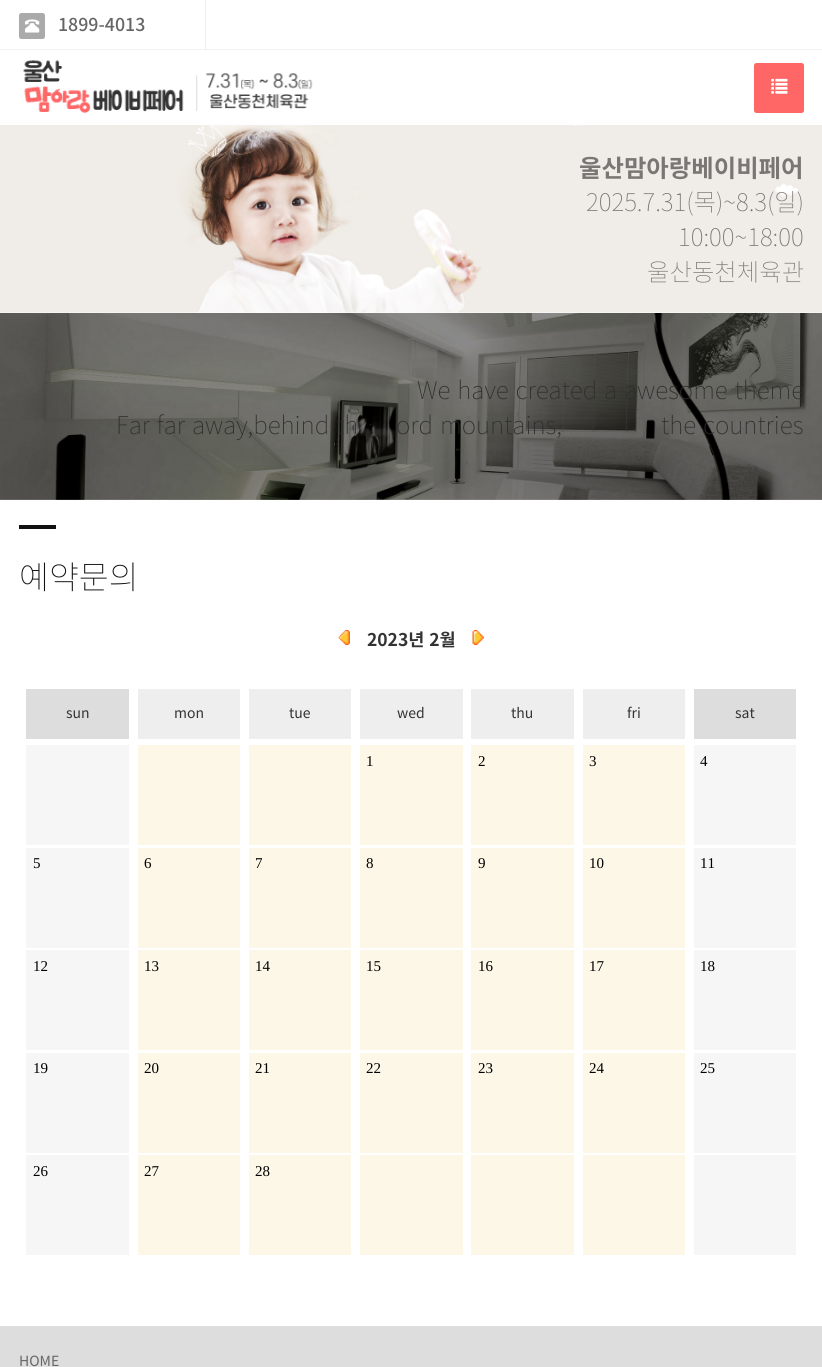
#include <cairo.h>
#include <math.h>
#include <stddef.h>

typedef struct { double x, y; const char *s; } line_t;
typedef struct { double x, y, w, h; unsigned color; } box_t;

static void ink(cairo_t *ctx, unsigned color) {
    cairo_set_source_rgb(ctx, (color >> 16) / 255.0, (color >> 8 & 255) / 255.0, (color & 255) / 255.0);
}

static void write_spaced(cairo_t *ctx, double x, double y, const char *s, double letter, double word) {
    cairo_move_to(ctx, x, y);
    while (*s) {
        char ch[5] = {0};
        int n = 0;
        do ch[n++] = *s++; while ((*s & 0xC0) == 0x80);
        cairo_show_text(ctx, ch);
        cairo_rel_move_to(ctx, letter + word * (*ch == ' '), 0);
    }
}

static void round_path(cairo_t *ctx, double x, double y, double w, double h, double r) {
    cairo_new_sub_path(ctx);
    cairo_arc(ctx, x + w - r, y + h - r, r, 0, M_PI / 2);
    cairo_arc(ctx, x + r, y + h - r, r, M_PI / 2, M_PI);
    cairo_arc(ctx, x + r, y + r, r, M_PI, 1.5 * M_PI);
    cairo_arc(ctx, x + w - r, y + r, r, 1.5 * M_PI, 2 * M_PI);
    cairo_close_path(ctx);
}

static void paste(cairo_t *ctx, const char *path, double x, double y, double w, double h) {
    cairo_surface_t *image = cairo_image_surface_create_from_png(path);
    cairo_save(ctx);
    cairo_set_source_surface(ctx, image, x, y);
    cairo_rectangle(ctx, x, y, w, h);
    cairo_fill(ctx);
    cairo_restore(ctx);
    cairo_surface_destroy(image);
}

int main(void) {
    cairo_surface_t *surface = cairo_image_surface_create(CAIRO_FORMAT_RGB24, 822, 1367);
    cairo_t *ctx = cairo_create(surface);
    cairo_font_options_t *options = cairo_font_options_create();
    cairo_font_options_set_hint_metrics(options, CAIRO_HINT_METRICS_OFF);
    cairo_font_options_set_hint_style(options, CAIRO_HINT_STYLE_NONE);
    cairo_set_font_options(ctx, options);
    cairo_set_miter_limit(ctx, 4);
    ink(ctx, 0xFFFFFF);
    cairo_paint(ctx);
    ink(ctx, 0xF3F3F3);
    cairo_rectangle(ctx, 0, 49, 822, 1);
    cairo_fill(ctx);
    ink(ctx, 0xEEEEEE);
    cairo_rectangle(ctx, 205, 0, 1, 50);
    cairo_fill(ctx);
    ink(ctx, 0xAAAAAA);
    round_path(ctx, 19, 13, 26, 26, 2.5);
    cairo_fill(ctx);
    paste(ctx, "media/1.png", 25, 19, 15, 14);
    cairo_select_font_face(ctx, "Noto Sans KR Medium", CAIRO_FONT_SLANT_NORMAL, CAIRO_FONT_WEIGHT_NORMAL);
    cairo_set_font_size(ctx, 17.75);
    ink(ctx, 0x666666);
    cairo_move_to(ctx, 58, 31);
    cairo_show_text(ctx, "1899-4013");
    paste(ctx, "media/2.png", 23, 60, 290, 53);
    ink(ctx, 0xFF6666);
    round_path(ctx, 754, 63, 50, 50, 2.5);
    cairo_fill(ctx);
    paste(ctx, "media/3.png", 771, 78, 17, 16);
    paste(ctx, "media/4.png", 0, 125, 822, 188);
    cairo_select_font_face(ctx, "Noto Sans KR", CAIRO_FONT_SLANT_NORMAL, CAIRO_FONT_WEIGHT_BOLD);
    cairo_set_font_size(ctx, 24.4);
    ink(ctx, 0x787774);
    cairo_move_to(ctx, 579, 177);
    cairo_show_text(ctx, "울산맘아랑베이비페어");
    cairo_select_font_face(ctx, "Noto Sans KR Thin", CAIRO_FONT_SLANT_NORMAL, CAIRO_FONT_WEIGHT_NORMAL);
    {
        static const line_t items[] = {
            {586, 211, "2025.7.31(목)~8.3(일)"},
            {678, 246, "10:00~18:00"},
            {647, 281, "울산동천체육관"},
        };
        for (size_t i = 0; i < sizeof items / sizeof *items; i++) {
            cairo_move_to(ctx, items[i].x, items[i].y);
            cairo_show_text(ctx, items[i].s);
        }
    }
    paste(ctx, "media/5.png", 0, 313, 822, 187);
    ink(ctx, 0x2D2D2B);
    {
        static const line_t items[] = {
            {417, 399, "We have created a awesome theme"},
            {116, 434, "Far far away,behind th"},
            {396, 434, "ord mountains,"},
            {661, 434, "the countries"},
        };
        for (size_t i = 0; i < sizeof items / sizeof *items; i++) {
            write_spaced(ctx, items[i].x, items[i].y, items[i].s, 0, 1.5);
        }
    }
    ink(ctx, 0x111111);
    cairo_rectangle(ctx, 19, 525, 37, 4);
    cairo_fill(ctx);
    cairo_set_font_size(ctx, 32.5);
    cairo_move_to(ctx, 19, 589);
    cairo_show_text(ctx, "예약문의");
    paste(ctx, "media/6.png", 338, 630, 12, 15);
    cairo_select_font_face(ctx, "Noto Sans KR", CAIRO_FONT_SLANT_NORMAL, CAIRO_FONT_WEIGHT_BOLD);
    cairo_set_font_size(ctx, 17.5);
    ink(ctx, 0x333333);
    write_spaced(ctx, 367, 646, "2023년 2월", 0, 1);
    paste(ctx, "media/7.png", 472, 630, 12, 15);
    ink(ctx, 0xDDDDDD);
    cairo_rectangle(ctx, 26, 689, 103, 50);
    cairo_fill(ctx);
    cairo_select_font_face(ctx, "Noto Sans KR", CAIRO_FONT_SLANT_NORMAL, CAIRO_FONT_WEIGHT_NORMAL);
    cairo_set_font_size(ctx, 14);
    ink(ctx, 0x333333);
    cairo_move_to(ctx, 66, 718);
    cairo_show_text(ctx, "sun");
    ink(ctx, 0xEEEEEE);
    cairo_rectangle(ctx, 138, 689, 102, 50);
    cairo_fill(ctx);
    ink(ctx, 0x333333);
    cairo_move_to(ctx, 174, 718);
    cairo_show_text(ctx, "mon");
    ink(ctx, 0xEEEEEE);
    cairo_rectangle(ctx, 249, 689, 102, 50);
    cairo_fill(ctx);
    ink(ctx, 0x333333);
    cairo_move_to(ctx, 289, 718);
    cairo_show_text(ctx, "tue");
    ink(ctx, 0xEEEEEE);
    cairo_rectangle(ctx, 360, 689, 103, 50);
    cairo_fill(ctx);
    ink(ctx, 0x333333);
    cairo_move_to(ctx, 397, 718);
    cairo_show_text(ctx, "wed");
    ink(ctx, 0xEEEEEE);
    cairo_rectangle(ctx, 471, 689, 103, 50);
    cairo_fill(ctx);
    ink(ctx, 0x333333);
    cairo_move_to(ctx, 511, 718);
    cairo_show_text(ctx, "thu");
    ink(ctx, 0xEEEEEE);
    cairo_rectangle(ctx, 583, 689, 102, 50);
    cairo_fill(ctx);
    ink(ctx, 0x333333);
    cairo_move_to(ctx, 627, 718);
    cairo_show_text(ctx, "fri");
    ink(ctx, 0xDDDDDD);
    cairo_rectangle(ctx, 694, 689, 102, 50);
    cairo_fill(ctx);
    ink(ctx, 0x333333);
    cairo_move_to(ctx, 735, 718);
    cairo_show_text(ctx, "sat");
    {
        static const box_t items[] = {
            {26, 745, 103, 100, 0xF6F6F6},
            {138, 745, 102, 100, 0xFCF7E6},
            {249, 745, 102, 100, 0xFCF7E6},
            {360, 745, 103, 100, 0xFCF7E6},
        };
        for (size_t i = 0; i < sizeof items / sizeof *items; i++) {
            ink(ctx, items[i].color);
            cairo_rectangle(ctx, items[i].x, items[i].y, items[i].w, items[i].h);
            cairo_fill(ctx);
        }
    }
    cairo_select_font_face(ctx, "Liberation Serif", CAIRO_FONT_SLANT_NORMAL, CAIRO_FONT_WEIGHT_NORMAL);
    cairo_set_font_size(ctx, 15);
    ink(ctx, 0x000000);
    cairo_move_to(ctx, 366, 766);
    cairo_show_text(ctx, "1");
    ink(ctx, 0xFCF7E6);
    cairo_rectangle(ctx, 471, 745, 103, 100);
    cairo_fill(ctx);
    ink(ctx, 0x000000);
    cairo_move_to(ctx, 478, 766);
    cairo_show_text(ctx, "2");
    ink(ctx, 0xFCF7E6);
    cairo_rectangle(ctx, 583, 745, 102, 100);
    cairo_fill(ctx);
    ink(ctx, 0x000000);
    cairo_move_to(ctx, 589, 766);
    cairo_show_text(ctx, "3");
    ink(ctx, 0xF6F6F6);
    cairo_rectangle(ctx, 694, 745, 102, 100);
    cairo_fill(ctx);
    ink(ctx, 0x000000);
    cairo_move_to(ctx, 700, 766);
    cairo_show_text(ctx, "4");
    ink(ctx, 0xF6F6F6);
    cairo_rectangle(ctx, 26, 848, 103, 100);
    cairo_fill(ctx);
    ink(ctx, 0x000000);
    cairo_move_to(ctx, 33, 868);
    cairo_show_text(ctx, "5");
    ink(ctx, 0xFCF7E6);
    cairo_rectangle(ctx, 138, 848, 102, 100);
    cairo_fill(ctx);
    ink(ctx, 0x000000);
    cairo_move_to(ctx, 144, 868);
    cairo_show_text(ctx, "6");
    ink(ctx, 0xFCF7E6);
    cairo_rectangle(ctx, 249, 848, 102, 100);
    cairo_fill(ctx);
    ink(ctx, 0x000000);
    cairo_move_to(ctx, 255, 868);
    cairo_show_text(ctx, "7");
    ink(ctx, 0xFCF7E6);
    cairo_rectangle(ctx, 360, 848, 103, 100);
    cairo_fill(ctx);
    ink(ctx, 0x000000);
    cairo_move_to(ctx, 366, 868);
    cairo_show_text(ctx, "8");
    ink(ctx, 0xFCF7E6);
    cairo_rectangle(ctx, 471, 848, 103, 100);
    cairo_fill(ctx);
    ink(ctx, 0x000000);
    cairo_move_to(ctx, 478, 868);
    cairo_show_text(ctx, "9");
    ink(ctx, 0xFCF7E6);
    cairo_rectangle(ctx, 583, 848, 102, 100);
    cairo_fill(ctx);
    ink(ctx, 0x000000);
    cairo_move_to(ctx, 589, 868);
    cairo_show_text(ctx, "10");
    ink(ctx, 0xF6F6F6);
    cairo_rectangle(ctx, 694, 848, 102, 100);
    cairo_fill(ctx);
    ink(ctx, 0x000000);
    cairo_move_to(ctx, 700, 868);
    cairo_show_text(ctx, "11");
    ink(ctx, 0xF6F6F6);
    cairo_rectangle(ctx, 26, 950, 103, 100);
    cairo_fill(ctx);
    ink(ctx, 0x000000);
    cairo_move_to(ctx, 33, 971);
    cairo_show_text(ctx, "12");
    ink(ctx, 0xFCF7E6);
    cairo_rectangle(ctx, 138, 950, 102, 100);
    cairo_fill(ctx);
    ink(ctx, 0x000000);
    cairo_move_to(ctx, 144, 971);
    cairo_show_text(ctx, "13");
    ink(ctx, 0xFCF7E6);
    cairo_rectangle(ctx, 249, 950, 102, 100);
    cairo_fill(ctx);
    ink(ctx, 0x000000);
    cairo_move_to(ctx, 255, 971);
    cairo_show_text(ctx, "14");
    ink(ctx, 0xFCF7E6);
    cairo_rectangle(ctx, 360, 950, 103, 100);
    cairo_fill(ctx);
    ink(ctx, 0x000000);
    cairo_move_to(ctx, 366, 971);
    cairo_show_text(ctx, "15");
    ink(ctx, 0xFCF7E6);
    cairo_rectangle(ctx, 471, 950, 103, 100);
    cairo_fill(ctx);
    ink(ctx, 0x000000);
    cairo_move_to(ctx, 478, 971);
    cairo_show_text(ctx, "16");
    ink(ctx, 0xFCF7E6);
    cairo_rectangle(ctx, 583, 950, 102, 100);
    cairo_fill(ctx);
    ink(ctx, 0x000000);
    cairo_move_to(ctx, 589, 971);
    cairo_show_text(ctx, "17");
    ink(ctx, 0xF6F6F6);
    cairo_rectangle(ctx, 694, 950, 102, 100);
    cairo_fill(ctx);
    ink(ctx, 0x000000);
    cairo_move_to(ctx, 700, 971);
    cairo_show_text(ctx, "18");
    ink(ctx, 0xF6F6F6);
    cairo_rectangle(ctx, 26, 1053, 103, 100);
    cairo_fill(ctx);
    ink(ctx, 0x000000);
    cairo_move_to(ctx, 33, 1073);
    cairo_show_text(ctx, "19");
    ink(ctx, 0xFCF7E6);
    cairo_rectangle(ctx, 138, 1053, 102, 100);
    cairo_fill(ctx);
    ink(ctx, 0x000000);
    cairo_move_to(ctx, 144, 1073);
    cairo_show_text(ctx, "20");
    ink(ctx, 0xFCF7E6);
    cairo_rectangle(ctx, 249, 1053, 102, 100);
    cairo_fill(ctx);
    ink(ctx, 0x000000);
    cairo_move_to(ctx, 255, 1073);
    cairo_show_text(ctx, "21");
    ink(ctx, 0xFCF7E6);
    cairo_rectangle(ctx, 360, 1053, 103, 100);
    cairo_fill(ctx);
    ink(ctx, 0x000000);
    cairo_move_to(ctx, 366, 1073);
    cairo_show_text(ctx, "22");
    ink(ctx, 0xFCF7E6);
    cairo_rectangle(ctx, 471, 1053, 103, 100);
    cairo_fill(ctx);
    ink(ctx, 0x000000);
    cairo_move_to(ctx, 478, 1073);
    cairo_show_text(ctx, "23");
    ink(ctx, 0xFCF7E6);
    cairo_rectangle(ctx, 583, 1053, 102, 100);
    cairo_fill(ctx);
    ink(ctx, 0x000000);
    cairo_move_to(ctx, 589, 1073);
    cairo_show_text(ctx, "24");
    ink(ctx, 0xF6F6F6);
    cairo_rectangle(ctx, 694, 1053, 102, 100);
    cairo_fill(ctx);
    ink(ctx, 0x000000);
    cairo_move_to(ctx, 700, 1073);
    cairo_show_text(ctx, "25");
    ink(ctx, 0xF6F6F6);
    cairo_rectangle(ctx, 26, 1155, 103, 100);
    cairo_fill(ctx);
    ink(ctx, 0x000000);
    cairo_move_to(ctx, 33, 1176);
    cairo_show_text(ctx, "26");
    ink(ctx, 0xFCF7E6);
    cairo_rectangle(ctx, 138, 1155, 102, 100);
    cairo_fill(ctx);
    ink(ctx, 0x000000);
    cairo_move_to(ctx, 144, 1176);
    cairo_show_text(ctx, "27");
    ink(ctx, 0xFCF7E6);
    cairo_rectangle(ctx, 249, 1155, 102, 100);
    cairo_fill(ctx);
    ink(ctx, 0x000000);
    cairo_move_to(ctx, 255, 1176);
    cairo_show_text(ctx, "28");
    {
        static const box_t items[] = {
            {360, 1155, 103, 100, 0xFCF7E6},
            {471, 1155, 103, 100, 0xFCF7E6},
            {583, 1155, 102, 100, 0xFCF7E6},
            {694, 1155, 102, 100, 0xF6F6F6},
            {0, 1326, 822, 41, 0xDDDDDD},
        };
        for (size_t i = 0; i < sizeof items / sizeof *items; i++) {
            ink(ctx, items[i].color);
            cairo_rectangle(ctx, items[i].x, items[i].y, items[i].w, items[i].h);
            cairo_fill(ctx);
        }
    }
    cairo_select_font_face(ctx, "Noto Sans KR", CAIRO_FONT_SLANT_NORMAL, CAIRO_FONT_WEIGHT_NORMAL);
    cairo_set_font_size(ctx, 14);
    ink(ctx, 0x666666);
    cairo_move_to(ctx, 19, 1366);
    cairo_show_text(ctx, "HOME");
    cairo_surface_write_to_png(surface, "image.png");
    cairo_font_options_destroy(options);
    cairo_destroy(ctx);
    cairo_surface_destroy(surface);
    return 0;
}
